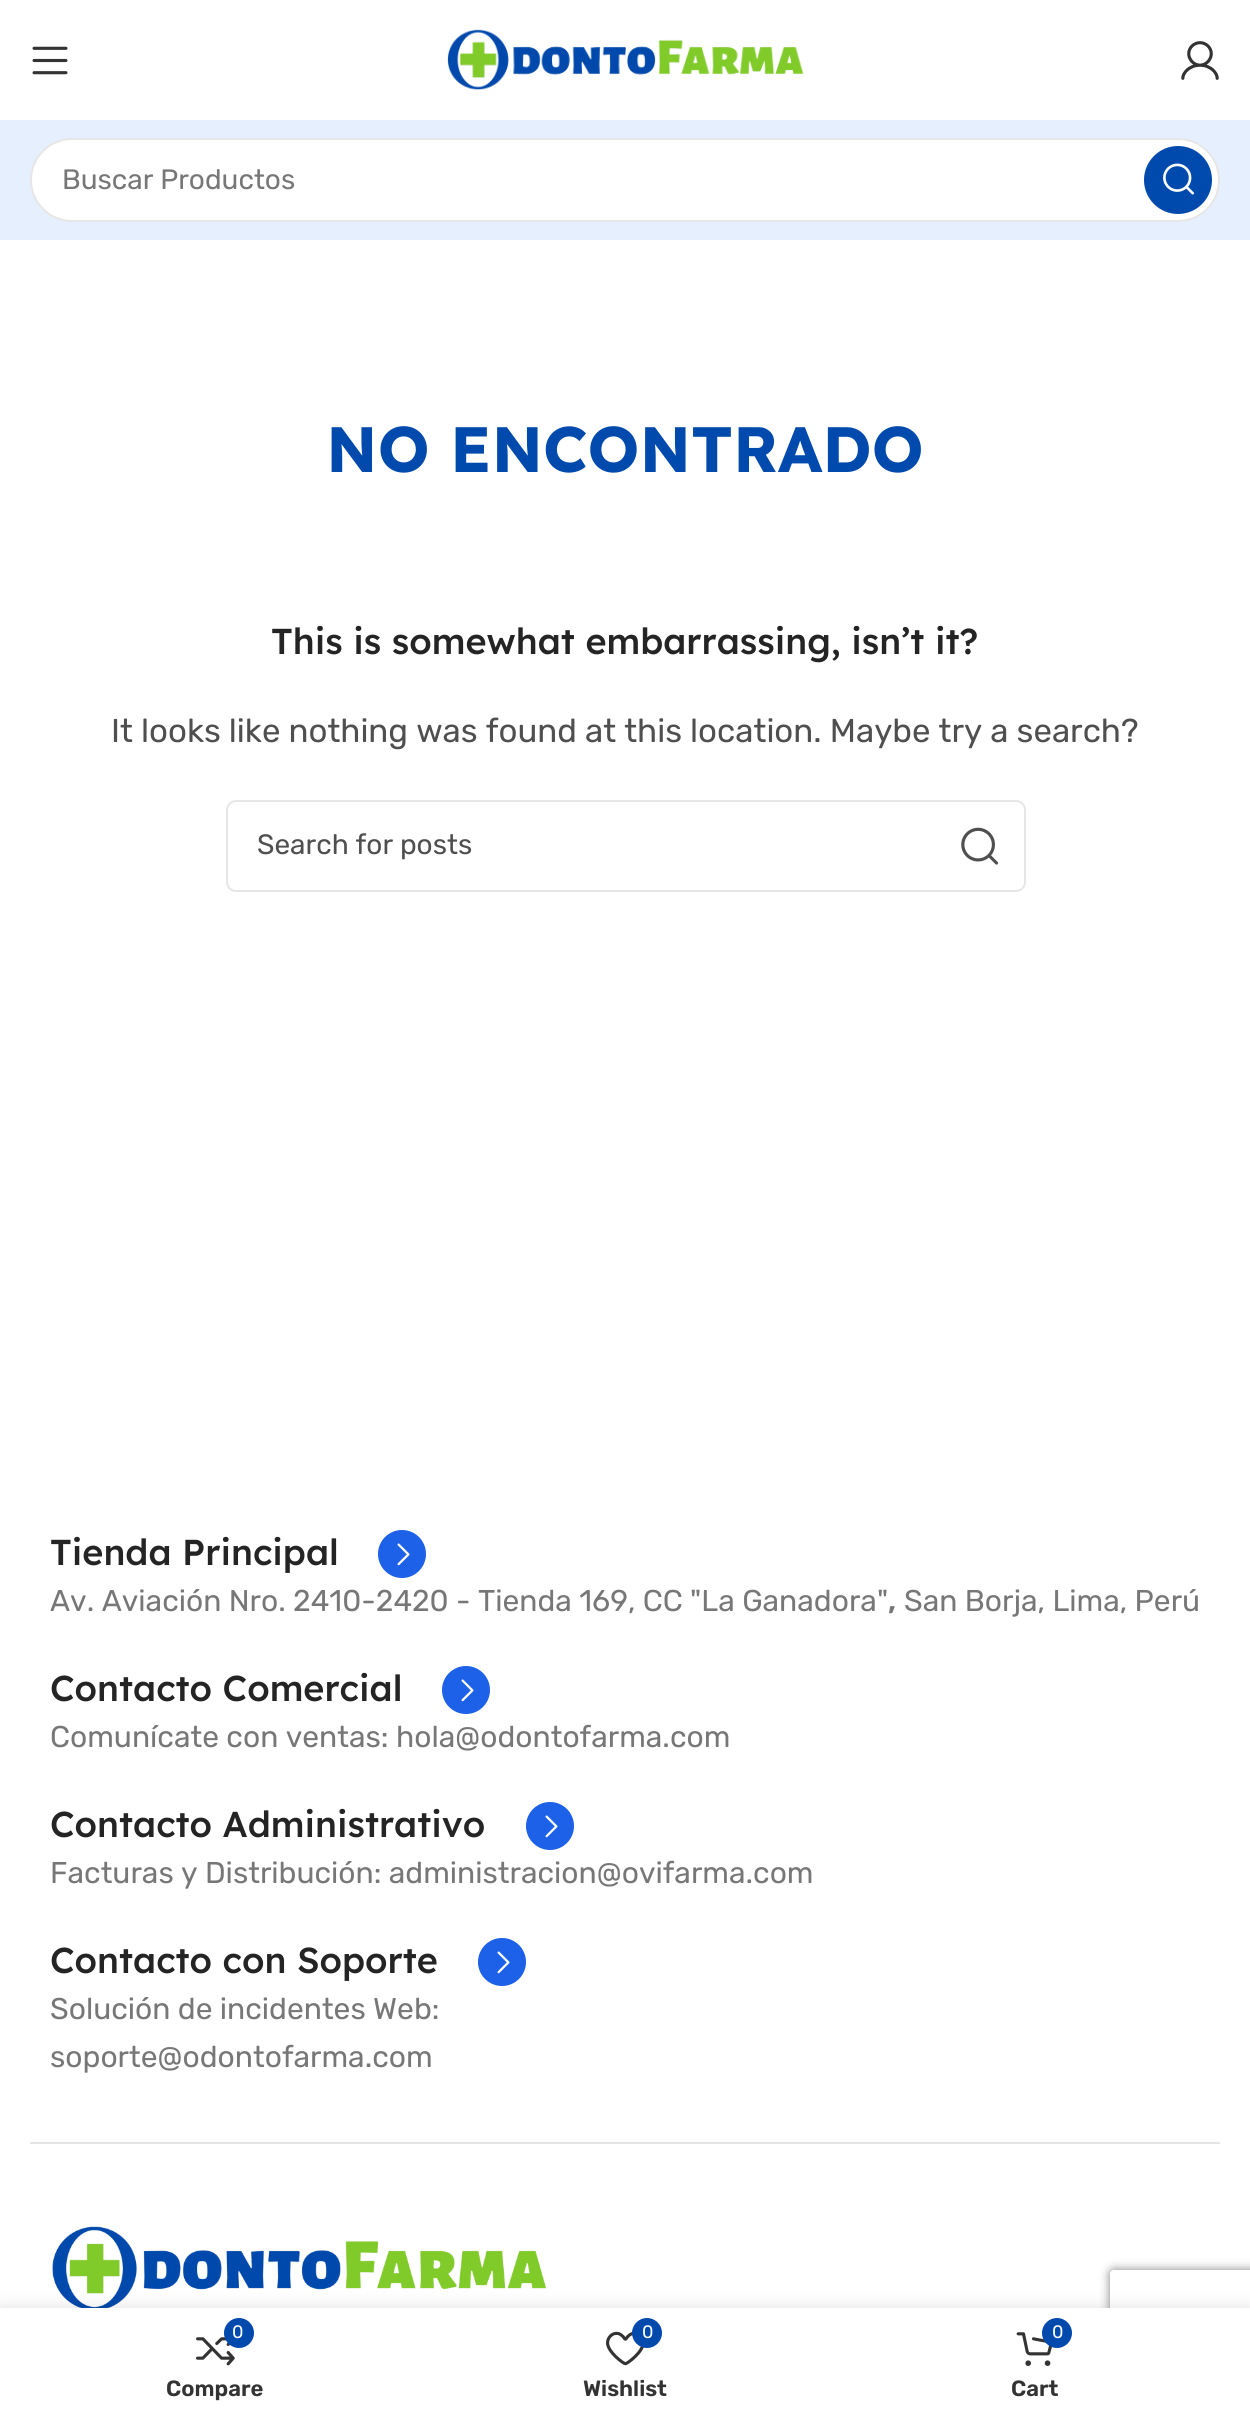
#include <cairo.h>
#include <math.h>
#include <stddef.h>


static void ink(cairo_t *ctx, unsigned color) {
    cairo_set_source_rgb(ctx, (color >> 16) / 255.0, (color >> 8 & 255) / 255.0, (color & 255) / 255.0);
}

static void round_path(cairo_t *ctx, double x, double y, double w, double h, double r) {
    cairo_new_sub_path(ctx);
    cairo_arc(ctx, x + w - r, y + h - r, r, 0, M_PI / 2);
    cairo_arc(ctx, x + r, y + h - r, r, M_PI / 2, M_PI);
    cairo_arc(ctx, x + r, y + r, r, M_PI, 1.5 * M_PI);
    cairo_arc(ctx, x + w - r, y + r, r, 1.5 * M_PI, 2 * M_PI);
    cairo_close_path(ctx);
}

static void blur_box(cairo_t *ctx, double x, double y, double w, double h, double r, double blur, double alpha) {
    cairo_push_group_with_content(ctx, CAIRO_CONTENT_ALPHA);
    cairo_set_operator(ctx, CAIRO_OPERATOR_SOURCE);
    for (int i = 15; i >= -15 && fmin(w, h) + blur * i / 3 > 0; i -= 2) {
        double e = blur * i / 6;
        cairo_set_source_rgba(ctx, 0, 0, 0, alpha * erfc((i - 1) / 8.5) / 2);
        round_path(ctx, x - e, y - e, w + 2 * e, h + 2 * e, fmax(0, fmin(r + e + blur * .6, fmin(w, h) / 2 + e)));
        cairo_fill(ctx);
    }
    cairo_pattern_t *soft = cairo_pop_group(ctx);
    cairo_mask(ctx, soft);
    cairo_pattern_destroy(soft);
}

static void paste(cairo_t *ctx, const char *path, double x, double y, double w, double h) {
    cairo_surface_t *image = cairo_image_surface_create_from_png(path);
    cairo_save(ctx);
    cairo_set_source_surface(ctx, image, x, y);
    cairo_rectangle(ctx, x, y, w, h);
    cairo_fill(ctx);
    cairo_restore(ctx);
    cairo_surface_destroy(image);
}

int main(void) {
    cairo_surface_t *surface = cairo_image_surface_create(CAIRO_FORMAT_RGB24, 1250, 2418);
    cairo_t *ctx = cairo_create(surface);
    cairo_font_options_t *options = cairo_font_options_create();
    cairo_font_options_set_hint_metrics(options, CAIRO_HINT_METRICS_OFF);
    cairo_font_options_set_hint_style(options, CAIRO_HINT_STYLE_NONE);
    cairo_set_font_options(ctx, options);
    cairo_set_miter_limit(ctx, 4);
    ink(ctx, 0xFFFFFF);
    cairo_paint(ctx);
    paste(ctx, "media/1.png", 32, 46, 36, 29);
    paste(ctx, "media/2.png", 447, 29, 357, 61);
    paste(ctx, "media/3.png", 1181, 41, 38, 39);
    ink(ctx, 0xE6EFFD);
    cairo_rectangle(ctx, 0, 120, 1250, 120);
    cairo_fill(ctx);
    ink(ctx, 0xFFFFFF);
    round_path(ctx, 30, 138, 1190, 84, 42);
    cairo_fill(ctx);
    round_path(ctx, 31, 139, 1188, 82, 41);
    cairo_set_source_rgba(ctx, 0, 0, 0, 0.1);
    cairo_stroke(ctx);
    cairo_select_font_face(ctx, "Rubik", CAIRO_FONT_SLANT_NORMAL, CAIRO_FONT_WEIGHT_NORMAL);
    cairo_set_font_size(ctx, 28);
    ink(ctx, 0x777777);
    cairo_move_to(ctx, 62, 189);
    cairo_show_text(ctx, "Buscar Productos");
    ink(ctx, 0x004AAD);
    cairo_new_path(ctx);
    cairo_arc(ctx, 1178, 180, 34, 0, 2 * M_PI);
    cairo_fill(ctx);
    paste(ctx, "media/4.png", 1163, 163, 31, 32);
    cairo_select_font_face(ctx, "Lexend Deca", CAIRO_FONT_SLANT_NORMAL, CAIRO_FONT_WEIGHT_BOLD);
    cairo_set_font_size(ctx, 64);
    cairo_move_to(ctx, 326, 472);
    cairo_show_text(ctx, "NO ENCONTRADO");
    cairo_select_font_face(ctx, "Lexend Deca Medium", CAIRO_FONT_SLANT_NORMAL, CAIRO_FONT_WEIGHT_NORMAL);
    cairo_set_font_size(ctx, 36);
    ink(ctx, 0x242424);
    cairo_move_to(ctx, 271, 654);
    cairo_show_text(ctx, "This is somewhat embarrassing, isn’t it?");
    cairo_select_font_face(ctx, "Rubik", CAIRO_FONT_SLANT_NORMAL, CAIRO_FONT_WEIGHT_NORMAL);
    cairo_set_font_size(ctx, 33);
    ink(ctx, 0x4F4F4F);
    cairo_move_to(ctx, 111, 742);
    cairo_show_text(ctx, "It looks like nothing was found at this location. Maybe try a search?");
    round_path(ctx, 227, 801, 798, 90, 9);
    ink(ctx, 0xE6E6E6);
    cairo_stroke(ctx);
    cairo_set_font_size(ctx, 28);
    ink(ctx, 0x4F4F4F);
    cairo_move_to(ctx, 257, 854);
    cairo_show_text(ctx, "Search for posts");
    paste(ctx, "media/5.png", 961, 827, 38, 38);
    ink(ctx, 0xE4E4E4);
    cairo_rectangle(ctx, 30, 2142, 1190, 2);
    cairo_fill(ctx);
    cairo_select_font_face(ctx, "Lexend Deca Medium", CAIRO_FONT_SLANT_NORMAL, CAIRO_FONT_WEIGHT_NORMAL);
    cairo_set_font_size(ctx, 36);
    ink(ctx, 0x242424);
    cairo_move_to(ctx, 50, 1565);
    cairo_show_text(ctx, "Tienda Principal");
    paste(ctx, "media/6.png", 378, 1530, 48, 48);
    cairo_select_font_face(ctx, "Rubik", CAIRO_FONT_SLANT_NORMAL, CAIRO_FONT_WEIGHT_NORMAL);
    cairo_set_font_size(ctx, 30);
    ink(ctx, 0x777777);
    cairo_move_to(ctx, 50, 1611);
    cairo_show_text(ctx, "Av. Aviación Nro. 2410-2420 - Tienda 169, CC \"La Ganadora\"");
    cairo_select_font_face(ctx, "Rubik SemiBold", CAIRO_FONT_SLANT_NORMAL, CAIRO_FONT_WEIGHT_NORMAL);
    cairo_move_to(ctx, 888, 1611);
    cairo_show_text(ctx, ",");
    cairo_select_font_face(ctx, "Rubik", CAIRO_FONT_SLANT_NORMAL, CAIRO_FONT_WEIGHT_NORMAL);
    cairo_move_to(ctx, 904, 1611);
    cairo_show_text(ctx, "San Borja, Lima, Perú");
    cairo_select_font_face(ctx, "Lexend Deca Medium", CAIRO_FONT_SLANT_NORMAL, CAIRO_FONT_WEIGHT_NORMAL);
    cairo_set_font_size(ctx, 36);
    ink(ctx, 0x242424);
    cairo_move_to(ctx, 50, 1701);
    cairo_show_text(ctx, "Contacto Comercial");
    paste(ctx, "media/6.png", 442, 1666, 48, 48);
    cairo_select_font_face(ctx, "Rubik", CAIRO_FONT_SLANT_NORMAL, CAIRO_FONT_WEIGHT_NORMAL);
    cairo_set_font_size(ctx, 30);
    ink(ctx, 0x777777);
    cairo_move_to(ctx, 50, 1747);
    cairo_show_text(ctx, "Comunícate con ventas: hola@odontofarma.com");
    cairo_select_font_face(ctx, "Lexend Deca Medium", CAIRO_FONT_SLANT_NORMAL, CAIRO_FONT_WEIGHT_NORMAL);
    cairo_set_font_size(ctx, 36);
    ink(ctx, 0x242424);
    cairo_move_to(ctx, 50, 1837);
    cairo_show_text(ctx, "Contacto Administrativo");
    paste(ctx, "media/6.png", 526, 1802, 48, 48);
    cairo_select_font_face(ctx, "Rubik", CAIRO_FONT_SLANT_NORMAL, CAIRO_FONT_WEIGHT_NORMAL);
    cairo_set_font_size(ctx, 30);
    ink(ctx, 0x777777);
    cairo_move_to(ctx, 50, 1883);
    cairo_show_text(ctx, "Facturas y Distribución: administracion@ovifarma.com");
    cairo_select_font_face(ctx, "Lexend Deca Medium", CAIRO_FONT_SLANT_NORMAL, CAIRO_FONT_WEIGHT_NORMAL);
    cairo_set_font_size(ctx, 36);
    ink(ctx, 0x242424);
    cairo_move_to(ctx, 50, 1973);
    cairo_show_text(ctx, "Contacto con Soporte");
    paste(ctx, "media/6.png", 478, 1938, 48, 48);
    cairo_select_font_face(ctx, "Rubik", CAIRO_FONT_SLANT_NORMAL, CAIRO_FONT_WEIGHT_NORMAL);
    cairo_set_font_size(ctx, 30);
    ink(ctx, 0x777777);
    cairo_move_to(ctx, 50, 2019);
    cairo_show_text(ctx, "Solución de incidentes Web:");
    cairo_move_to(ctx, 50, 2067);
    cairo_show_text(ctx, "soporte@odontofarma.com");
    paste(ctx, "media/7.png", 52, 2226, 494, 82);
    ink(ctx, 0x000000);
    blur_box(ctx, 0, 2308, 1250, 110, 0, 9, 0.12);
    cairo_save(ctx);
    cairo_set_fill_rule(ctx, CAIRO_FILL_RULE_EVEN_ODD);
    cairo_new_path(ctx);
    cairo_move_to(ctx, 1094, 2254);
    cairo_line_to(ctx, 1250, 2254);
    cairo_line_to(ctx, 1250, 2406);
    cairo_line_to(ctx, 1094, 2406);
    cairo_close_path(ctx);
    cairo_move_to(ctx, 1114, 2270);
    cairo_line_to(ctx, 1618, 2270);
    cairo_curve_to(ctx, 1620, 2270, 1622, 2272, 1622, 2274);
    cairo_line_to(ctx, 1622, 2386);
    cairo_curve_to(ctx, 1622, 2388, 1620, 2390, 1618, 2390);
    cairo_line_to(ctx, 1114, 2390);
    cairo_curve_to(ctx, 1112, 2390, 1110, 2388, 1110, 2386);
    cairo_line_to(ctx, 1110, 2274);
    cairo_curve_to(ctx, 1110, 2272, 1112, 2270, 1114, 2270);
    cairo_close_path(ctx);
    cairo_clip(ctx);
    ink(ctx, 0x808080);
    blur_box(ctx, 1110, 2270, 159, 120, 4, 5, 1);
    cairo_restore(ctx);
    ink(ctx, 0xFFFFFF);
    cairo_rectangle(ctx, 0, 2308, 1250, 110);
    cairo_fill(ctx);
    paste(ctx, "media/8.png", 196, 2337, 39, 29);
    ink(ctx, 0x004AAD);
    cairo_arc(ctx, 239, 2333, 15, 0, 2 * M_PI);
    cairo_fill(ctx);
    cairo_set_font_size(ctx, 18);
    ink(ctx, 0xFFFFFF);
    cairo_move_to(ctx, 232, 2338);
    cairo_show_text(ctx, "0");
    cairo_select_font_face(ctx, "Rubik SemiBold", CAIRO_FONT_SLANT_NORMAL, CAIRO_FONT_WEIGHT_NORMAL);
    cairo_set_font_size(ctx, 22);
    ink(ctx, 0x333333);
    cairo_move_to(ctx, 166, 2396);
    cairo_show_text(ctx, "Compare");
    paste(ctx, "media/9.png", 606, 2331, 38, 35);
    ink(ctx, 0x004AAD);
    cairo_arc(ctx, 647, 2333, 15, 0, 2 * M_PI);
    cairo_fill(ctx);
    cairo_select_font_face(ctx, "Rubik", CAIRO_FONT_SLANT_NORMAL, CAIRO_FONT_WEIGHT_NORMAL);
    cairo_set_font_size(ctx, 18);
    ink(ctx, 0xFFFFFF);
    cairo_move_to(ctx, 642, 2338);
    cairo_show_text(ctx, "0");
    cairo_select_font_face(ctx, "Rubik SemiBold", CAIRO_FONT_SLANT_NORMAL, CAIRO_FONT_WEIGHT_NORMAL);
    cairo_set_font_size(ctx, 22);
    ink(ctx, 0x333333);
    cairo_move_to(ctx, 583, 2396);
    cairo_show_text(ctx, "Wishlist");
    paste(ctx, "media/10.png", 1016, 2332, 36, 34);
    ink(ctx, 0x004AAD);
    cairo_arc(ctx, 1057, 2333, 15, 0, 2 * M_PI);
    cairo_fill(ctx);
    cairo_select_font_face(ctx, "Rubik", CAIRO_FONT_SLANT_NORMAL, CAIRO_FONT_WEIGHT_NORMAL);
    cairo_set_font_size(ctx, 18);
    ink(ctx, 0xFFFFFF);
    cairo_move_to(ctx, 1052, 2338);
    cairo_show_text(ctx, "0");
    cairo_select_font_face(ctx, "Rubik SemiBold", CAIRO_FONT_SLANT_NORMAL, CAIRO_FONT_WEIGHT_NORMAL);
    cairo_set_font_size(ctx, 22);
    ink(ctx, 0x333333);
    cairo_move_to(ctx, 1011, 2396);
    cairo_show_text(ctx, "Cart");
    cairo_surface_write_to_png(surface, "image.png");
    cairo_font_options_destroy(options);
    cairo_destroy(ctx);
    cairo_surface_destroy(surface);
    return 0;
}
